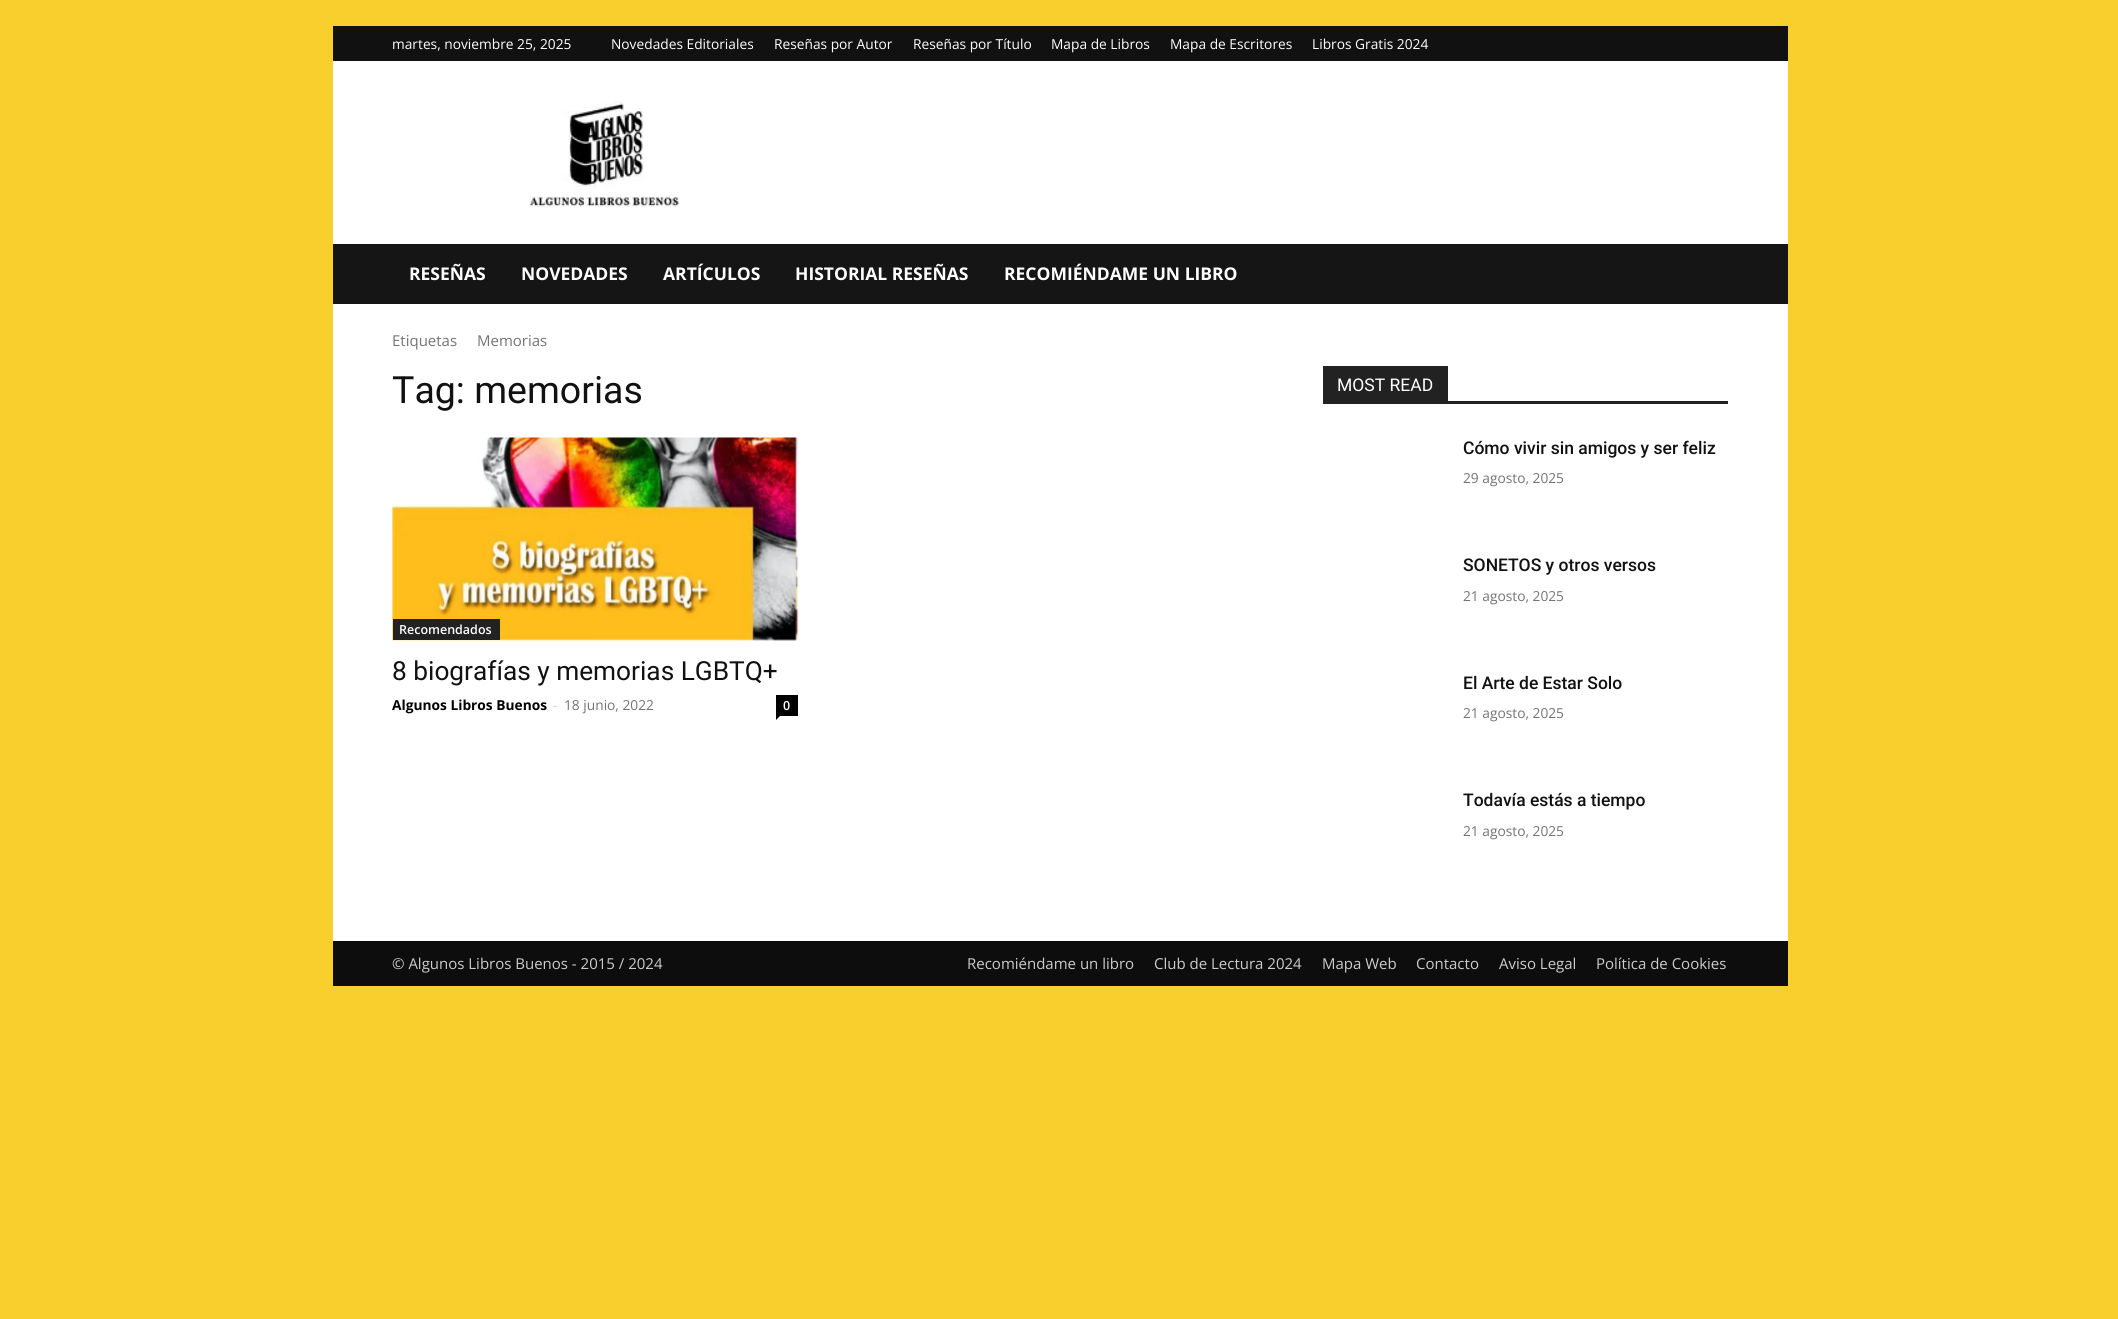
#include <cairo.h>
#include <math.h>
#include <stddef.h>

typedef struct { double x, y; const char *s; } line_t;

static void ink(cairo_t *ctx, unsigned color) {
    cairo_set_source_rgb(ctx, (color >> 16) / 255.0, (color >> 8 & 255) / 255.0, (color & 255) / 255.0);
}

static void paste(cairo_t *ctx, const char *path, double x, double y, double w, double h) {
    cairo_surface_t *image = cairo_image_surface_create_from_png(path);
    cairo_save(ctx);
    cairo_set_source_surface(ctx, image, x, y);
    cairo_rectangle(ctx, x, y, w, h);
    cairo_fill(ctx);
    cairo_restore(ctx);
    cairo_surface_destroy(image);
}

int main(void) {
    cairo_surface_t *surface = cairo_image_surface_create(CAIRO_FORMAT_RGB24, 2118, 1319);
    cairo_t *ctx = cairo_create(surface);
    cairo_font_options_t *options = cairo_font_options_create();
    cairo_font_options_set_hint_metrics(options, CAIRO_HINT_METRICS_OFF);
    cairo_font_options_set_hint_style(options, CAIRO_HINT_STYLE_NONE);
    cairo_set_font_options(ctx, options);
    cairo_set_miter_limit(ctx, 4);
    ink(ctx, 0xF9CF2E);
    cairo_paint(ctx);
    ink(ctx, 0x111111);
    cairo_rectangle(ctx, 333, 26, 1455, 35);
    cairo_fill(ctx);
    cairo_select_font_face(ctx, "Open Sans", CAIRO_FONT_SLANT_NORMAL, CAIRO_FONT_WEIGHT_NORMAL);
    cairo_set_font_size(ctx, 13.75);
    ink(ctx, 0xFFFFFF);
    {
        static const line_t items[] = {
            {392, 49, "martes, noviembre 25, 2025"},
            {611, 49, "Novedades Editoriales"},
            {774, 49, "Reseñas por Autor"},
            {913, 49, "Reseñas por Título"},
            {1051, 49, "Mapa de Libros"},
            {1170, 49, "Mapa de Escritores"},
            {1312, 49, "Libros Gratis 2024"},
        };
        for (size_t i = 0; i < sizeof items / sizeof *items; i++) {
            cairo_move_to(ctx, items[i].x, items[i].y);
            cairo_show_text(ctx, items[i].s);
        }
    }
    cairo_rectangle(ctx, 333, 61, 1455, 183);
    cairo_fill(ctx);
    paste(ctx, "media/1.png", 529, 101, 150, 106);
    ink(ctx, 0x151515);
    cairo_rectangle(ctx, 333, 244, 1455, 60);
    cairo_fill(ctx);
    cairo_select_font_face(ctx, "Open Sans", CAIRO_FONT_SLANT_NORMAL, CAIRO_FONT_WEIGHT_BOLD);
    cairo_set_font_size(ctx, 17.5);
    ink(ctx, 0xFFFFFF);
    {
        static const line_t items[] = {
            {409, 280, "RESEÑAS"},
            {521, 280, "NOVEDADES"},
            {663, 280, "ARTÍCULOS"},
            {795, 280, "HISTORIAL RESEÑAS"},
            {1004, 280, "RECOMIÉNDAME UN LIBRO"},
        };
        for (size_t i = 0; i < sizeof items / sizeof *items; i++) {
            cairo_move_to(ctx, items[i].x, items[i].y);
            cairo_show_text(ctx, items[i].s);
        }
    }
    cairo_rectangle(ctx, 333, 304, 1455, 637);
    cairo_fill(ctx);
    cairo_select_font_face(ctx, "Open Sans", CAIRO_FONT_SLANT_NORMAL, CAIRO_FONT_WEIGHT_NORMAL);
    cairo_set_font_size(ctx, 15);
    ink(ctx, 0x747474);
    cairo_move_to(ctx, 392, 346);
    cairo_show_text(ctx, "Etiquetas");
    cairo_move_to(ctx, 477, 346);
    cairo_show_text(ctx, "Memorias");
    cairo_select_font_face(ctx, "Roboto", CAIRO_FONT_SLANT_NORMAL, CAIRO_FONT_WEIGHT_NORMAL);
    cairo_set_font_size(ctx, 37.5);
    ink(ctx, 0x111111);
    cairo_move_to(ctx, 392, 403);
    cairo_show_text(ctx, "Tag: memorias");
    paste(ctx, "media/2.png", 392, 437, 407, 204);
    ink(ctx, 0x222222);
    cairo_rectangle(ctx, 393, 619, 107, 21);
    cairo_fill(ctx);
    cairo_select_font_face(ctx, "Open Sans SemiBold", CAIRO_FONT_SLANT_NORMAL, CAIRO_FONT_WEIGHT_NORMAL);
    cairo_set_font_size(ctx, 12.5);
    ink(ctx, 0xFFFFFF);
    cairo_move_to(ctx, 399, 634);
    cairo_show_text(ctx, "Recomendados");
    cairo_select_font_face(ctx, "Roboto", CAIRO_FONT_SLANT_NORMAL, CAIRO_FONT_WEIGHT_NORMAL);
    cairo_set_font_size(ctx, 26.25);
    ink(ctx, 0x111111);
    cairo_move_to(ctx, 392, 680);
    cairo_show_text(ctx, "8 biografías y memorias LGBTQ+");
    cairo_select_font_face(ctx, "Open Sans", CAIRO_FONT_SLANT_NORMAL, CAIRO_FONT_WEIGHT_BOLD);
    cairo_set_font_size(ctx, 13.75);
    ink(ctx, 0x000000);
    cairo_move_to(ctx, 392, 710);
    cairo_show_text(ctx, "Algunos Libros Buenos");
    cairo_select_font_face(ctx, "Open Sans", CAIRO_FONT_SLANT_NORMAL, CAIRO_FONT_WEIGHT_NORMAL);
    ink(ctx, 0xCCCCCC);
    cairo_move_to(ctx, 553, 710);
    cairo_show_text(ctx, "-");
    ink(ctx, 0x747474);
    cairo_move_to(ctx, 564, 710);
    cairo_show_text(ctx, "18 junio, 2022");
    ink(ctx, 0x000000);
    cairo_rectangle(ctx, 776, 695, 22, 21);
    cairo_fill(ctx);
    cairo_select_font_face(ctx, "Open Sans SemiBold", CAIRO_FONT_SLANT_NORMAL, CAIRO_FONT_WEIGHT_NORMAL);
    cairo_set_font_size(ctx, 12.5);
    ink(ctx, 0xFFFFFF);
    cairo_move_to(ctx, 783, 710);
    cairo_show_text(ctx, "0");
    ink(ctx, 0x000000);
    cairo_new_path(ctx);
    cairo_move_to(ctx, 776, 716);
    cairo_line_to(ctx, 780, 716);
    cairo_line_to(ctx, 776, 720);
    cairo_close_path(ctx);
    cairo_fill(ctx);
    ink(ctx, 0x222222);
    cairo_rectangle(ctx, 1323, 401, 405, 3);
    cairo_fill(ctx);
    cairo_rectangle(ctx, 1323, 366, 125, 35);
    cairo_fill(ctx);
    cairo_select_font_face(ctx, "Roboto", CAIRO_FONT_SLANT_NORMAL, CAIRO_FONT_WEIGHT_NORMAL);
    cairo_set_font_size(ctx, 17.5);
    ink(ctx, 0xFFFFFF);
    cairo_move_to(ctx, 1337, 391);
    cairo_show_text(ctx, "MOST READ");
    cairo_select_font_face(ctx, "Roboto Medium", CAIRO_FONT_SLANT_NORMAL, CAIRO_FONT_WEIGHT_NORMAL);
    ink(ctx, 0x111111);
    cairo_move_to(ctx, 1463, 454);
    cairo_show_text(ctx, "Cómo vivir sin amigos y ser feliz");
    cairo_select_font_face(ctx, "Open Sans", CAIRO_FONT_SLANT_NORMAL, CAIRO_FONT_WEIGHT_NORMAL);
    cairo_set_font_size(ctx, 13.75);
    ink(ctx, 0x747474);
    cairo_move_to(ctx, 1463, 483);
    cairo_show_text(ctx, "29 agosto, 2025");
    cairo_select_font_face(ctx, "Roboto Medium", CAIRO_FONT_SLANT_NORMAL, CAIRO_FONT_WEIGHT_NORMAL);
    cairo_set_font_size(ctx, 17.5);
    ink(ctx, 0x111111);
    cairo_move_to(ctx, 1463, 571);
    cairo_show_text(ctx, "SONETOS y otros versos");
    cairo_select_font_face(ctx, "Open Sans", CAIRO_FONT_SLANT_NORMAL, CAIRO_FONT_WEIGHT_NORMAL);
    cairo_set_font_size(ctx, 13.75);
    ink(ctx, 0x747474);
    cairo_move_to(ctx, 1463, 601);
    cairo_show_text(ctx, "21 agosto, 2025");
    cairo_select_font_face(ctx, "Roboto Medium", CAIRO_FONT_SLANT_NORMAL, CAIRO_FONT_WEIGHT_NORMAL);
    cairo_set_font_size(ctx, 17.5);
    ink(ctx, 0x111111);
    cairo_move_to(ctx, 1463, 689);
    cairo_show_text(ctx, "El Arte de Estar Solo");
    cairo_select_font_face(ctx, "Open Sans", CAIRO_FONT_SLANT_NORMAL, CAIRO_FONT_WEIGHT_NORMAL);
    cairo_set_font_size(ctx, 13.75);
    ink(ctx, 0x747474);
    cairo_move_to(ctx, 1463, 718);
    cairo_show_text(ctx, "21 agosto, 2025");
    cairo_select_font_face(ctx, "Roboto Medium", CAIRO_FONT_SLANT_NORMAL, CAIRO_FONT_WEIGHT_NORMAL);
    cairo_set_font_size(ctx, 17.5);
    ink(ctx, 0x111111);
    cairo_move_to(ctx, 1463, 806);
    cairo_show_text(ctx, "Todavía estás a tiempo");
    cairo_select_font_face(ctx, "Open Sans", CAIRO_FONT_SLANT_NORMAL, CAIRO_FONT_WEIGHT_NORMAL);
    cairo_set_font_size(ctx, 13.75);
    ink(ctx, 0x747474);
    cairo_move_to(ctx, 1463, 836);
    cairo_show_text(ctx, "21 agosto, 2025");
    ink(ctx, 0x0D0D0D);
    cairo_rectangle(ctx, 333, 941, 1455, 45);
    cairo_fill(ctx);
    cairo_set_font_size(ctx, 15);
    ink(ctx, 0xCCCCCC);
    {
        static const line_t items[] = {
            {392, 969, "© Algunos Libros Buenos - 2015 / 2024"},
            {967, 969, "Recomiéndame un libro"},
            {1154, 969, "Club de Lectura 2024"},
            {1322, 969, "Mapa Web"},
            {1416, 969, "Contacto"},
            {1499, 969, "Aviso Legal"},
            {1596, 969, "Política de Cookies"},
        };
        for (size_t i = 0; i < sizeof items / sizeof *items; i++) {
            cairo_move_to(ctx, items[i].x, items[i].y);
            cairo_show_text(ctx, items[i].s);
        }
    }
    cairo_surface_write_to_png(surface, "image.png");
    cairo_font_options_destroy(options);
    cairo_destroy(ctx);
    cairo_surface_destroy(surface);
    return 0;
}
